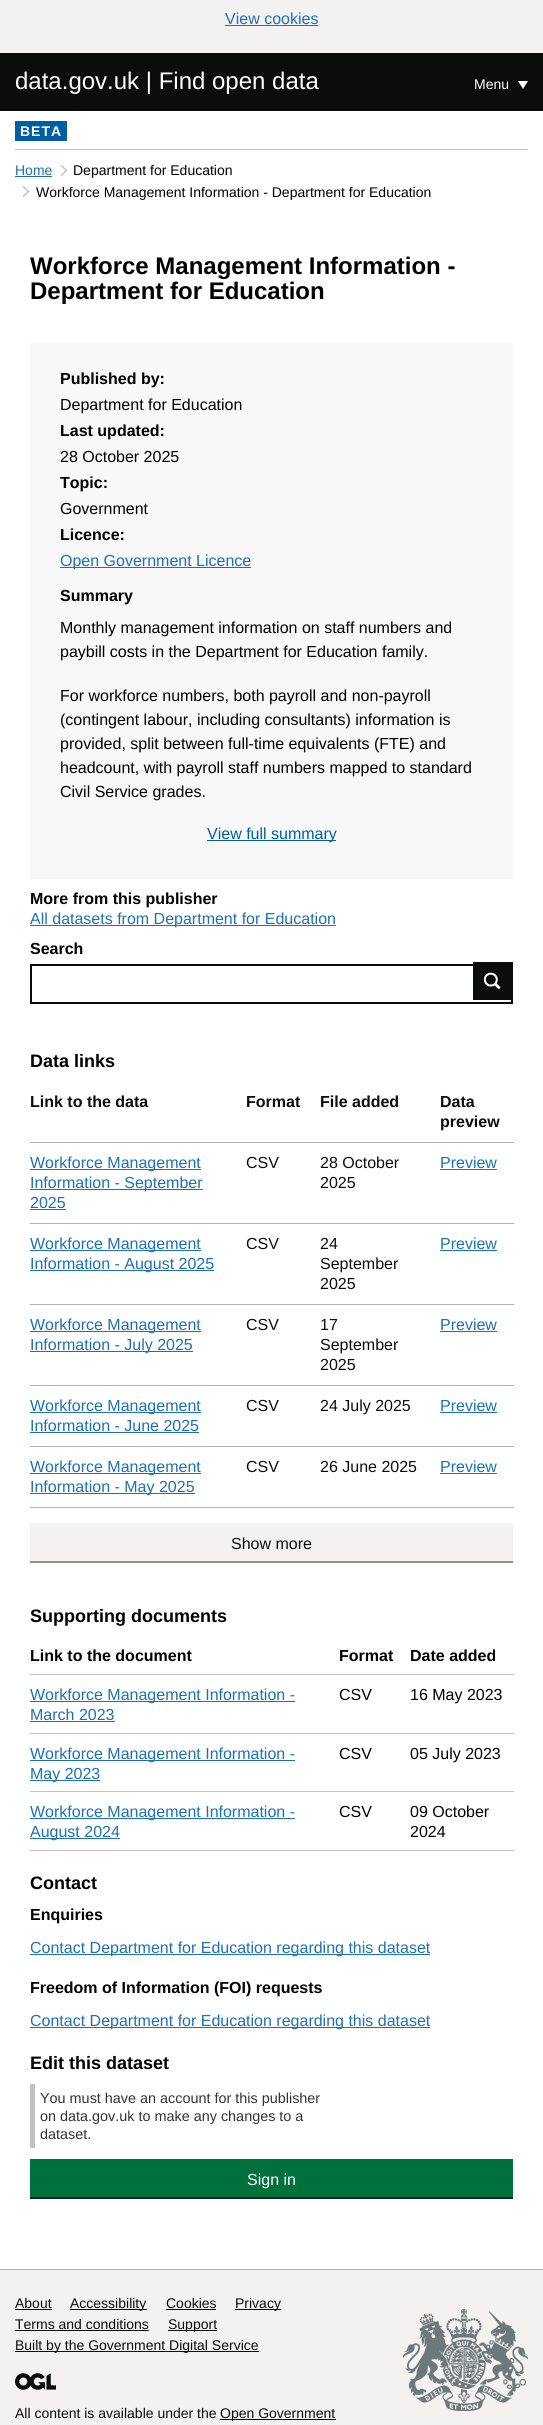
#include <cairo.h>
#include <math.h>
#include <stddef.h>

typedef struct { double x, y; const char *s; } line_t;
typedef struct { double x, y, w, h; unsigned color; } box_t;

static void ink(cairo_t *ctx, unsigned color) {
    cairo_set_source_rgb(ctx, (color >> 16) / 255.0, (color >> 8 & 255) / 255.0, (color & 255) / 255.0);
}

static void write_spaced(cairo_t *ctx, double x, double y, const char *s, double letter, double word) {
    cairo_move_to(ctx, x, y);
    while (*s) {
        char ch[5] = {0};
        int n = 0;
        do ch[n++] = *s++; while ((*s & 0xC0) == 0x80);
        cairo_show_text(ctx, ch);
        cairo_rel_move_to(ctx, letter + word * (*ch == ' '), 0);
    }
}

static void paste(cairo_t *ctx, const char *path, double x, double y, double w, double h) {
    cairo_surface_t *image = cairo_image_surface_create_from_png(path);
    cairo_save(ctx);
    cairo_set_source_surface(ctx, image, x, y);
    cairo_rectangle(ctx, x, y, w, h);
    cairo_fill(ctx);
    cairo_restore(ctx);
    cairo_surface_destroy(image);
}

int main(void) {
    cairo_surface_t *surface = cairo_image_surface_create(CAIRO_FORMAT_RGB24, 543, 2425);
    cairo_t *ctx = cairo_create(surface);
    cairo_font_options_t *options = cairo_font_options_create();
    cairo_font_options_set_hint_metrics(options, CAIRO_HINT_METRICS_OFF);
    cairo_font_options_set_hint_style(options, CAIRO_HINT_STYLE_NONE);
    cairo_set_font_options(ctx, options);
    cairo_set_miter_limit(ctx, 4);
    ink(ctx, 0xFFFFFF);
    cairo_paint(ctx);
    ink(ctx, 0xF3F2F1);
    cairo_rectangle(ctx, 0, 0, 543, 53);
    cairo_fill(ctx);
    cairo_select_font_face(ctx, "Liberation Sans", CAIRO_FONT_SLANT_NORMAL, CAIRO_FONT_WEIGHT_NORMAL);
    cairo_set_font_size(ctx, 16);
    ink(ctx, 0x1D70B8);
    cairo_move_to(ctx, 225, 24);
    cairo_show_text(ctx, "View cookies");
    cairo_rectangle(ctx, 225, 25, 93, 1);
    cairo_fill(ctx);
    ink(ctx, 0x0B0C0C);
    cairo_rectangle(ctx, 0, 53, 543, 58);
    cairo_fill(ctx);
    cairo_set_font_size(ctx, 24);
    ink(ctx, 0xFFFFFF);
    cairo_move_to(ctx, 15, 89);
    cairo_show_text(ctx, "data.gov.uk | Find open data");
    cairo_set_font_size(ctx, 14);
    cairo_move_to(ctx, 474, 89);
    cairo_show_text(ctx, "Menu");
    cairo_new_path(ctx);
    cairo_move_to(ctx, 518, 81);
    cairo_line_to(ctx, 528, 81);
    cairo_line_to(ctx, 523, 89);
    cairo_close_path(ctx);
    cairo_fill(ctx);
    ink(ctx, 0xBFC1C3);
    cairo_rectangle(ctx, 15, 149, 513, 1);
    cairo_fill(ctx);
    ink(ctx, 0x005EA5);
    cairo_rectangle(ctx, 15, 121, 52, 20);
    cairo_fill(ctx);
    cairo_select_font_face(ctx, "Liberation Sans", CAIRO_FONT_SLANT_NORMAL, CAIRO_FONT_WEIGHT_BOLD);
    ink(ctx, 0xFFFFFF);
    write_spaced(ctx, 20, 136, "BETA", 1, 0);
    cairo_select_font_face(ctx, "Liberation Sans", CAIRO_FONT_SLANT_NORMAL, CAIRO_FONT_WEIGHT_NORMAL);
    ink(ctx, 0x1D70B8);
    cairo_move_to(ctx, 15, 175);
    cairo_show_text(ctx, "Home");
    cairo_rectangle(ctx, 15, 176, 37, 1);
    cairo_fill(ctx);
    paste(ctx, "media/1.png", 61, 165, 6, 11);
    ink(ctx, 0x000000);
    cairo_move_to(ctx, 73, 175);
    cairo_show_text(ctx, "Department for Education");
    paste(ctx, "media/1.png", 23, 186, 6, 11);
    cairo_move_to(ctx, 36, 197);
    cairo_show_text(ctx, "Workforce Management Information - Department for Education");
    cairo_select_font_face(ctx, "Liberation Sans", CAIRO_FONT_SLANT_NORMAL, CAIRO_FONT_WEIGHT_BOLD);
    cairo_set_font_size(ctx, 24);
    cairo_move_to(ctx, 30, 274);
    cairo_show_text(ctx, "Workforce Management Information -");
    cairo_move_to(ctx, 30, 299);
    cairo_show_text(ctx, "Department for Education");
    ink(ctx, 0xF8F8F8);
    cairo_rectangle(ctx, 30, 343, 483, 536);
    cairo_fill(ctx);
    cairo_set_font_size(ctx, 16);
    ink(ctx, 0x000000);
    cairo_move_to(ctx, 60, 384);
    cairo_show_text(ctx, "Published by:");
    cairo_select_font_face(ctx, "Liberation Sans", CAIRO_FONT_SLANT_NORMAL, CAIRO_FONT_WEIGHT_NORMAL);
    cairo_move_to(ctx, 60, 410);
    cairo_show_text(ctx, "Department for Education");
    cairo_select_font_face(ctx, "Liberation Sans", CAIRO_FONT_SLANT_NORMAL, CAIRO_FONT_WEIGHT_BOLD);
    cairo_move_to(ctx, 60, 436);
    cairo_show_text(ctx, "Last updated:");
    cairo_select_font_face(ctx, "Liberation Sans", CAIRO_FONT_SLANT_NORMAL, CAIRO_FONT_WEIGHT_NORMAL);
    cairo_move_to(ctx, 60, 462);
    cairo_show_text(ctx, "28 October 2025");
    cairo_select_font_face(ctx, "Liberation Sans", CAIRO_FONT_SLANT_NORMAL, CAIRO_FONT_WEIGHT_BOLD);
    cairo_move_to(ctx, 60, 488);
    cairo_show_text(ctx, "Topic:");
    cairo_select_font_face(ctx, "Liberation Sans", CAIRO_FONT_SLANT_NORMAL, CAIRO_FONT_WEIGHT_NORMAL);
    cairo_move_to(ctx, 60, 514);
    cairo_show_text(ctx, "Government");
    cairo_select_font_face(ctx, "Liberation Sans", CAIRO_FONT_SLANT_NORMAL, CAIRO_FONT_WEIGHT_BOLD);
    cairo_move_to(ctx, 60, 540);
    cairo_show_text(ctx, "Licence:");
    ink(ctx, 0x1D70B8);
    cairo_rectangle(ctx, 60, 567, 191, 1);
    cairo_fill(ctx);
    cairo_select_font_face(ctx, "Liberation Sans", CAIRO_FONT_SLANT_NORMAL, CAIRO_FONT_WEIGHT_NORMAL);
    cairo_move_to(ctx, 60, 566);
    cairo_show_text(ctx, "Open Government Licence");
    cairo_select_font_face(ctx, "Liberation Sans", CAIRO_FONT_SLANT_NORMAL, CAIRO_FONT_WEIGHT_BOLD);
    ink(ctx, 0x000000);
    cairo_move_to(ctx, 60, 601);
    cairo_show_text(ctx, "Summary");
    cairo_select_font_face(ctx, "Liberation Sans", CAIRO_FONT_SLANT_NORMAL, CAIRO_FONT_WEIGHT_NORMAL);
    {
        static const line_t items[] = {
            {60, 633, "Monthly management information on staff numbers and"},
            {60, 657, "paybill costs in the Department for Education family."},
            {60, 701, "For workforce numbers, both payroll and non-payroll"},
            {60, 725, "(contingent labour, including consultants) information is"},
            {60, 749, "provided, split between full-time equivalents (FTE) and"},
            {60, 773, "headcount, with payroll staff numbers mapped to standard"},
            {60, 797, "Civil Service grades."},
        };
        for (size_t i = 0; i < sizeof items / sizeof *items; i++) {
            cairo_move_to(ctx, items[i].x, items[i].y);
            cairo_show_text(ctx, items[i].s);
        }
    }
    ink(ctx, 0x005EA5);
    cairo_rectangle(ctx, 207, 840, 129, 1);
    cairo_fill(ctx);
    cairo_move_to(ctx, 207, 839);
    cairo_show_text(ctx, "View full summary");
    cairo_select_font_face(ctx, "Liberation Sans", CAIRO_FONT_SLANT_NORMAL, CAIRO_FONT_WEIGHT_BOLD);
    ink(ctx, 0x000000);
    cairo_move_to(ctx, 30, 904);
    cairo_show_text(ctx, "More from this publisher");
    ink(ctx, 0x1D70B8);
    cairo_rectangle(ctx, 30, 925, 306, 1);
    cairo_fill(ctx);
    cairo_select_font_face(ctx, "Liberation Sans", CAIRO_FONT_SLANT_NORMAL, CAIRO_FONT_WEIGHT_NORMAL);
    cairo_move_to(ctx, 30, 924);
    cairo_show_text(ctx, "All datasets from Department for Education");
    cairo_select_font_face(ctx, "Liberation Sans", CAIRO_FONT_SLANT_NORMAL, CAIRO_FONT_WEIGHT_BOLD);
    ink(ctx, 0x000000);
    cairo_move_to(ctx, 30, 954);
    cairo_show_text(ctx, "Search");
    cairo_rectangle(ctx, 31, 965, 481, 38);
    ink(ctx, 0x0B0C0C);
    cairo_stroke(ctx);
    cairo_rectangle(ctx, 473, 962, 40, 38);
    cairo_fill(ctx);
    paste(ctx, "media/2.png", 484, 972, 17, 18);
    cairo_set_font_size(ctx, 18);
    ink(ctx, 0x000000);
    cairo_move_to(ctx, 30, 1067);
    cairo_show_text(ctx, "Data links");
    cairo_set_font_size(ctx, 16);
    ink(ctx, 0x0B0C0C);
    {
        static const line_t items[] = {
            {30, 1107, "Link to the data"},
            {246, 1107, "Format"},
            {320, 1107, "File added"},
        };
        for (size_t i = 0; i < sizeof items / sizeof *items; i++) {
            cairo_move_to(ctx, items[i].x, items[i].y);
            cairo_show_text(ctx, items[i].s);
        }
    }
    ink(ctx, 0xB1B4B6);
    cairo_rectangle(ctx, 30, 1142, 484, 1);
    cairo_fill(ctx);
    ink(ctx, 0x0B0C0C);
    cairo_move_to(ctx, 440, 1107);
    cairo_show_text(ctx, "Data");
    cairo_move_to(ctx, 440, 1127);
    cairo_show_text(ctx, "preview");
    ink(ctx, 0x1D70B8);
    cairo_rectangle(ctx, 30, 1169, 171, 1);
    cairo_fill(ctx);
    cairo_select_font_face(ctx, "Liberation Sans", CAIRO_FONT_SLANT_NORMAL, CAIRO_FONT_WEIGHT_NORMAL);
    cairo_move_to(ctx, 30, 1168);
    cairo_show_text(ctx, "Workforce Management");
    cairo_rectangle(ctx, 30, 1189, 173, 1);
    cairo_fill(ctx);
    cairo_move_to(ctx, 30, 1188);
    cairo_show_text(ctx, "Information - September");
    cairo_move_to(ctx, 30, 1208);
    cairo_show_text(ctx, "2025");
    cairo_rectangle(ctx, 30, 1209, 36, 1);
    cairo_fill(ctx);
    ink(ctx, 0x0B0C0C);
    {
        static const line_t items[] = {
            {246, 1168, "CSV"},
            {320, 1168, "28 October"},
            {320, 1188, "2025"},
        };
        for (size_t i = 0; i < sizeof items / sizeof *items; i++) {
            cairo_move_to(ctx, items[i].x, items[i].y);
            cairo_show_text(ctx, items[i].s);
        }
    }
    ink(ctx, 0xB1B4B6);
    cairo_rectangle(ctx, 30, 1223, 484, 1);
    cairo_fill(ctx);
    ink(ctx, 0x1D70B8);
    cairo_move_to(ctx, 440, 1168);
    cairo_show_text(ctx, "Preview");
    cairo_rectangle(ctx, 440, 1169, 57, 1);
    cairo_fill(ctx);
    cairo_rectangle(ctx, 30, 1250, 171, 1);
    cairo_fill(ctx);
    cairo_move_to(ctx, 30, 1249);
    cairo_show_text(ctx, "Workforce Management");
    cairo_rectangle(ctx, 30, 1270, 184, 1);
    cairo_fill(ctx);
    cairo_move_to(ctx, 30, 1269);
    cairo_show_text(ctx, "Information - August 2025");
    ink(ctx, 0x0B0C0C);
    {
        static const line_t items[] = {
            {246, 1249, "CSV"},
            {320, 1249, "24"},
            {320, 1269, "September"},
            {320, 1289, "2025"},
        };
        for (size_t i = 0; i < sizeof items / sizeof *items; i++) {
            cairo_move_to(ctx, items[i].x, items[i].y);
            cairo_show_text(ctx, items[i].s);
        }
    }
    ink(ctx, 0xB1B4B6);
    cairo_rectangle(ctx, 30, 1304, 484, 1);
    cairo_fill(ctx);
    ink(ctx, 0x1D70B8);
    cairo_move_to(ctx, 440, 1249);
    cairo_show_text(ctx, "Preview");
    cairo_rectangle(ctx, 440, 1250, 57, 1);
    cairo_fill(ctx);
    cairo_rectangle(ctx, 30, 1331, 171, 1);
    cairo_fill(ctx);
    cairo_move_to(ctx, 30, 1330);
    cairo_show_text(ctx, "Workforce Management");
    cairo_rectangle(ctx, 30, 1351, 163, 1);
    cairo_fill(ctx);
    cairo_move_to(ctx, 30, 1350);
    cairo_show_text(ctx, "Information - July 2025");
    ink(ctx, 0x0B0C0C);
    {
        static const line_t items[] = {
            {246, 1330, "CSV"},
            {320, 1330, "17"},
            {320, 1350, "September"},
            {320, 1370, "2025"},
        };
        for (size_t i = 0; i < sizeof items / sizeof *items; i++) {
            cairo_move_to(ctx, items[i].x, items[i].y);
            cairo_show_text(ctx, items[i].s);
        }
    }
    ink(ctx, 0xB1B4B6);
    cairo_rectangle(ctx, 30, 1385, 484, 1);
    cairo_fill(ctx);
    ink(ctx, 0x1D70B8);
    cairo_move_to(ctx, 440, 1330);
    cairo_show_text(ctx, "Preview");
    cairo_rectangle(ctx, 440, 1331, 57, 1);
    cairo_fill(ctx);
    cairo_rectangle(ctx, 30, 1412, 171, 1);
    cairo_fill(ctx);
    cairo_move_to(ctx, 30, 1411);
    cairo_show_text(ctx, "Workforce Management");
    cairo_move_to(ctx, 30, 1431);
    cairo_show_text(ctx, "Information - June 2025");
    cairo_rectangle(ctx, 30, 1432, 169, 1);
    cairo_fill(ctx);
    ink(ctx, 0x0B0C0C);
    cairo_move_to(ctx, 246, 1411);
    cairo_show_text(ctx, "CSV");
    cairo_move_to(ctx, 320, 1411);
    cairo_show_text(ctx, "24 July 2025");
    ink(ctx, 0xB1B4B6);
    cairo_rectangle(ctx, 30, 1446, 484, 1);
    cairo_fill(ctx);
    ink(ctx, 0x1D70B8);
    cairo_move_to(ctx, 440, 1411);
    cairo_show_text(ctx, "Preview");
    cairo_rectangle(ctx, 440, 1412, 57, 1);
    cairo_fill(ctx);
    cairo_rectangle(ctx, 30, 1473, 171, 1);
    cairo_fill(ctx);
    cairo_move_to(ctx, 30, 1472);
    cairo_show_text(ctx, "Workforce Management");
    cairo_rectangle(ctx, 30, 1493, 165, 1);
    cairo_fill(ctx);
    cairo_move_to(ctx, 30, 1492);
    cairo_show_text(ctx, "Information - May 2025");
    ink(ctx, 0x0B0C0C);
    cairo_move_to(ctx, 246, 1472);
    cairo_show_text(ctx, "CSV");
    cairo_move_to(ctx, 320, 1472);
    cairo_show_text(ctx, "26 June 2025");
    ink(ctx, 0xB1B4B6);
    cairo_rectangle(ctx, 30, 1507, 484, 1);
    cairo_fill(ctx);
    ink(ctx, 0x1D70B8);
    cairo_move_to(ctx, 440, 1472);
    cairo_show_text(ctx, "Preview");
    {
        static const box_t items[] = {
            {440, 1473, 57, 1, 0x1D70B8},
            {30, 1561, 483, 2, 0x929191},
            {30, 1523, 483, 38, 0xF3F2F1},
        };
        for (size_t i = 0; i < sizeof items / sizeof *items; i++) {
            ink(ctx, items[i].color);
            cairo_rectangle(ctx, items[i].x, items[i].y, items[i].w, items[i].h);
            cairo_fill(ctx);
        }
    }
    ink(ctx, 0x0B0C0C);
    cairo_move_to(ctx, 231, 1549);
    cairo_show_text(ctx, "Show more");
    cairo_select_font_face(ctx, "Liberation Sans", CAIRO_FONT_SLANT_NORMAL, CAIRO_FONT_WEIGHT_BOLD);
    cairo_set_font_size(ctx, 18);
    ink(ctx, 0x000000);
    cairo_move_to(ctx, 30, 1622);
    cairo_show_text(ctx, "Supporting documents");
    cairo_set_font_size(ctx, 16);
    cairo_move_to(ctx, 30, 1661);
    cairo_show_text(ctx, "Link to the document");
    cairo_move_to(ctx, 339, 1661);
    cairo_show_text(ctx, "Format");
    ink(ctx, 0xBFC1C3);
    cairo_rectangle(ctx, 30, 1674, 484, 1);
    cairo_fill(ctx);
    ink(ctx, 0x000000);
    cairo_move_to(ctx, 410, 1661);
    cairo_show_text(ctx, "Date added");
    ink(ctx, 0x1D70B8);
    cairo_rectangle(ctx, 30, 1701, 265, 1);
    cairo_fill(ctx);
    cairo_select_font_face(ctx, "Liberation Sans", CAIRO_FONT_SLANT_NORMAL, CAIRO_FONT_WEIGHT_NORMAL);
    cairo_move_to(ctx, 30, 1700);
    cairo_show_text(ctx, "Workforce Management Information -");
    cairo_move_to(ctx, 30, 1720);
    cairo_show_text(ctx, "March 2023");
    cairo_rectangle(ctx, 30, 1721, 85, 1);
    cairo_fill(ctx);
    ink(ctx, 0x000000);
    cairo_move_to(ctx, 339, 1700);
    cairo_show_text(ctx, "CSV");
    ink(ctx, 0xBFC1C3);
    cairo_rectangle(ctx, 30, 1733, 484, 1);
    cairo_fill(ctx);
    ink(ctx, 0x000000);
    cairo_move_to(ctx, 410, 1700);
    cairo_show_text(ctx, "16 May 2023");
    ink(ctx, 0x1D70B8);
    cairo_rectangle(ctx, 30, 1760, 265, 1);
    cairo_fill(ctx);
    cairo_move_to(ctx, 30, 1759);
    cairo_show_text(ctx, "Workforce Management Information -");
    cairo_rectangle(ctx, 30, 1780, 70, 1);
    cairo_fill(ctx);
    cairo_move_to(ctx, 30, 1779);
    cairo_show_text(ctx, "May 2023");
    ink(ctx, 0x000000);
    cairo_move_to(ctx, 339, 1759);
    cairo_show_text(ctx, "CSV");
    ink(ctx, 0xBFC1C3);
    cairo_rectangle(ctx, 30, 1791, 484, 1);
    cairo_fill(ctx);
    ink(ctx, 0x000000);
    cairo_move_to(ctx, 410, 1759);
    cairo_show_text(ctx, "05 July 2023");
    ink(ctx, 0x1D70B8);
    cairo_rectangle(ctx, 30, 1818, 265, 1);
    cairo_fill(ctx);
    cairo_move_to(ctx, 30, 1817);
    cairo_show_text(ctx, "Workforce Management Information -");
    cairo_rectangle(ctx, 30, 1838, 90, 1);
    cairo_fill(ctx);
    cairo_move_to(ctx, 30, 1837);
    cairo_show_text(ctx, "August 2024");
    ink(ctx, 0x000000);
    cairo_move_to(ctx, 339, 1817);
    cairo_show_text(ctx, "CSV");
    ink(ctx, 0xBFC1C3);
    cairo_rectangle(ctx, 30, 1850, 484, 1);
    cairo_fill(ctx);
    ink(ctx, 0x000000);
    cairo_move_to(ctx, 410, 1817);
    cairo_show_text(ctx, "09 October");
    cairo_move_to(ctx, 410, 1837);
    cairo_show_text(ctx, "2024");
    cairo_select_font_face(ctx, "Liberation Sans", CAIRO_FONT_SLANT_NORMAL, CAIRO_FONT_WEIGHT_BOLD);
    cairo_set_font_size(ctx, 18);
    cairo_move_to(ctx, 30, 1889);
    cairo_show_text(ctx, "Contact");
    cairo_set_font_size(ctx, 16);
    cairo_move_to(ctx, 30, 1920);
    cairo_show_text(ctx, "Enquiries");
    ink(ctx, 0x1D70B8);
    cairo_rectangle(ctx, 30, 1954, 400, 1);
    cairo_fill(ctx);
    cairo_select_font_face(ctx, "Liberation Sans", CAIRO_FONT_SLANT_NORMAL, CAIRO_FONT_WEIGHT_NORMAL);
    cairo_move_to(ctx, 30, 1953);
    cairo_show_text(ctx, "Contact Department for Education regarding this dataset");
    cairo_select_font_face(ctx, "Liberation Sans", CAIRO_FONT_SLANT_NORMAL, CAIRO_FONT_WEIGHT_BOLD);
    ink(ctx, 0x000000);
    cairo_move_to(ctx, 30, 1993);
    cairo_show_text(ctx, "Freedom of Information (FOI) requests");
    ink(ctx, 0x1D70B8);
    cairo_rectangle(ctx, 30, 2027, 400, 1);
    cairo_fill(ctx);
    cairo_select_font_face(ctx, "Liberation Sans", CAIRO_FONT_SLANT_NORMAL, CAIRO_FONT_WEIGHT_NORMAL);
    cairo_move_to(ctx, 30, 2026);
    cairo_show_text(ctx, "Contact Department for Education regarding this dataset");
    cairo_select_font_face(ctx, "Liberation Sans", CAIRO_FONT_SLANT_NORMAL, CAIRO_FONT_WEIGHT_BOLD);
    cairo_set_font_size(ctx, 18);
    ink(ctx, 0x000000);
    cairo_move_to(ctx, 30, 2069);
    cairo_show_text(ctx, "Edit this dataset");
    ink(ctx, 0xBFC1C3);
    cairo_rectangle(ctx, 30, 2084, 5, 64);
    cairo_fill(ctx);
    cairo_select_font_face(ctx, "Liberation Sans", CAIRO_FONT_SLANT_NORMAL, CAIRO_FONT_WEIGHT_NORMAL);
    cairo_set_font_size(ctx, 14.4);
    ink(ctx, 0x333333);
    {
        static const line_t items[] = {
            {40, 2103, "You must have an account for this publisher"},
            {40, 2121, "on data.gov.uk to make any changes to a"},
            {40, 2139, "dataset."},
        };
        for (size_t i = 0; i < sizeof items / sizeof *items; i++) {
            cairo_move_to(ctx, items[i].x, items[i].y);
            cairo_show_text(ctx, items[i].s);
        }
    }
    ink(ctx, 0x002D18);
    cairo_rectangle(ctx, 30, 2197, 483, 2);
    cairo_fill(ctx);
    ink(ctx, 0x00703C);
    cairo_rectangle(ctx, 30, 2159, 483, 38);
    cairo_fill(ctx);
    cairo_set_font_size(ctx, 16);
    ink(ctx, 0xFFFFFF);
    cairo_move_to(ctx, 247, 2185);
    cairo_show_text(ctx, "Sign in");
    ink(ctx, 0xF3F2F1);
    cairo_rectangle(ctx, 0, 2270, 543, 155);
    cairo_fill(ctx);
    ink(ctx, 0xB1B4B6);
    cairo_rectangle(ctx, 0, 2269, 543, 1);
    cairo_fill(ctx);
    cairo_set_font_size(ctx, 14);
    ink(ctx, 0x0B0C0C);
    cairo_move_to(ctx, 15, 2308);
    cairo_show_text(ctx, "About");
    cairo_rectangle(ctx, 15, 2309, 37, 1);
    cairo_fill(ctx);
    cairo_rectangle(ctx, 70, 2309, 77, 1);
    cairo_fill(ctx);
    cairo_move_to(ctx, 70, 2308);
    cairo_show_text(ctx, "Accessibility");
    cairo_move_to(ctx, 166, 2308);
    cairo_show_text(ctx, "Cookies");
    cairo_rectangle(ctx, 166, 2309, 50, 1);
    cairo_fill(ctx);
    cairo_rectangle(ctx, 235, 2309, 46, 1);
    cairo_fill(ctx);
    cairo_move_to(ctx, 235, 2308);
    cairo_show_text(ctx, "Privacy");
    cairo_move_to(ctx, 15, 2329);
    cairo_show_text(ctx, "Terms and conditions");
    cairo_rectangle(ctx, 15, 2330, 134, 1);
    cairo_fill(ctx);
    cairo_rectangle(ctx, 168, 2330, 49, 1);
    cairo_fill(ctx);
    cairo_move_to(ctx, 168, 2329);
    cairo_show_text(ctx, "Support");
    cairo_rectangle(ctx, 15, 2351, 244, 1);
    cairo_fill(ctx);
    cairo_move_to(ctx, 15, 2350);
    cairo_show_text(ctx, "Built by the Government Digital Service");
    paste(ctx, "media/3.png", 15, 2373, 41, 17);
    cairo_move_to(ctx, 15, 2418);
    cairo_show_text(ctx, "All content is available under the");
    cairo_rectangle(ctx, 220, 2419, 116, 1);
    cairo_fill(ctx);
    cairo_move_to(ctx, 220, 2418);
    cairo_show_text(ctx, "Open Government");
    paste(ctx, "media/4.png", 403, 2309, 125, 102);
    cairo_surface_write_to_png(surface, "image.png");
    cairo_font_options_destroy(options);
    cairo_destroy(ctx);
    cairo_surface_destroy(surface);
    return 0;
}
